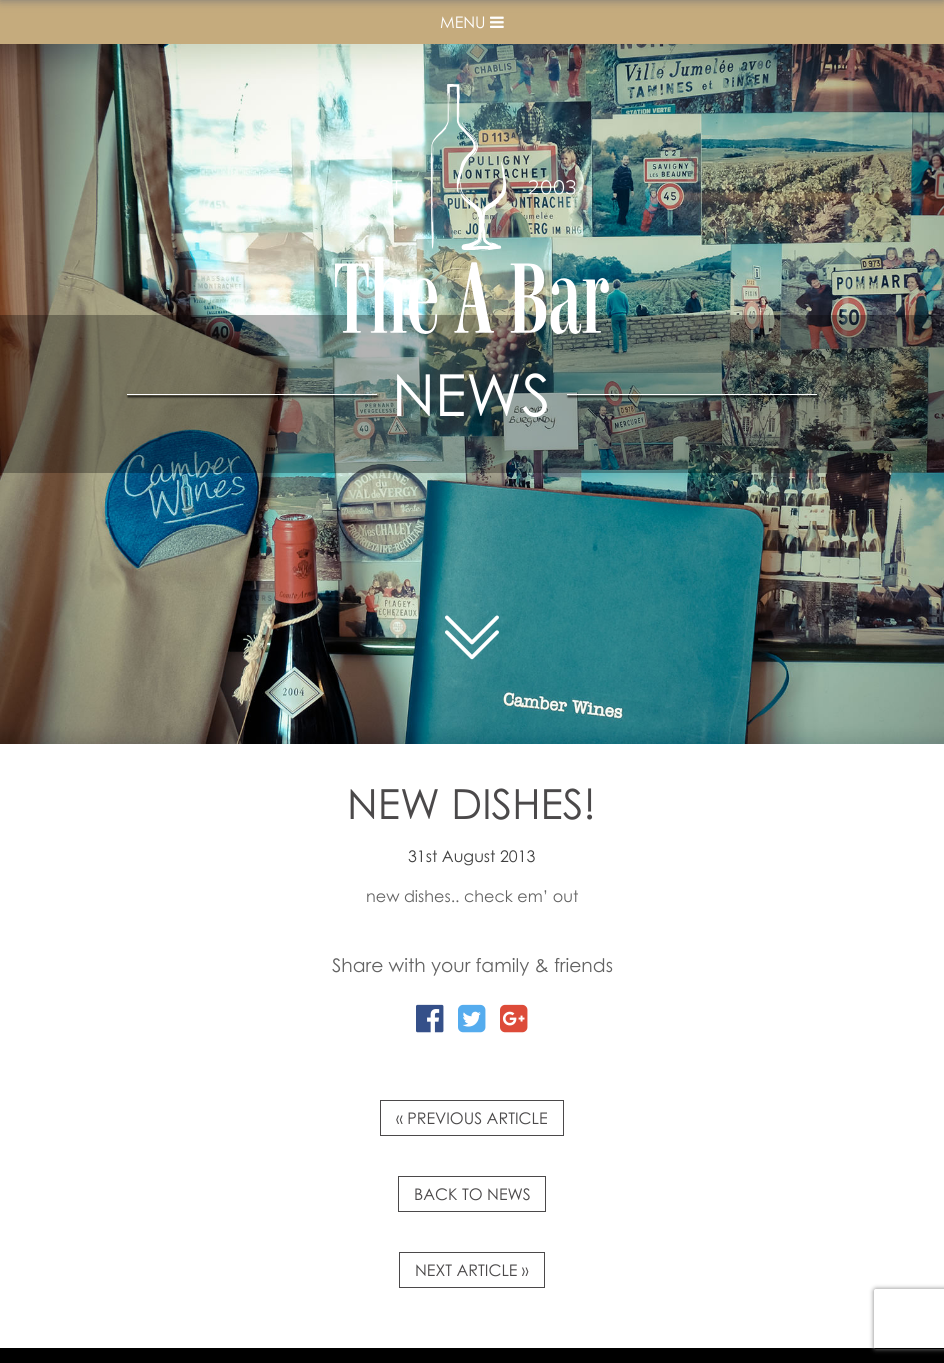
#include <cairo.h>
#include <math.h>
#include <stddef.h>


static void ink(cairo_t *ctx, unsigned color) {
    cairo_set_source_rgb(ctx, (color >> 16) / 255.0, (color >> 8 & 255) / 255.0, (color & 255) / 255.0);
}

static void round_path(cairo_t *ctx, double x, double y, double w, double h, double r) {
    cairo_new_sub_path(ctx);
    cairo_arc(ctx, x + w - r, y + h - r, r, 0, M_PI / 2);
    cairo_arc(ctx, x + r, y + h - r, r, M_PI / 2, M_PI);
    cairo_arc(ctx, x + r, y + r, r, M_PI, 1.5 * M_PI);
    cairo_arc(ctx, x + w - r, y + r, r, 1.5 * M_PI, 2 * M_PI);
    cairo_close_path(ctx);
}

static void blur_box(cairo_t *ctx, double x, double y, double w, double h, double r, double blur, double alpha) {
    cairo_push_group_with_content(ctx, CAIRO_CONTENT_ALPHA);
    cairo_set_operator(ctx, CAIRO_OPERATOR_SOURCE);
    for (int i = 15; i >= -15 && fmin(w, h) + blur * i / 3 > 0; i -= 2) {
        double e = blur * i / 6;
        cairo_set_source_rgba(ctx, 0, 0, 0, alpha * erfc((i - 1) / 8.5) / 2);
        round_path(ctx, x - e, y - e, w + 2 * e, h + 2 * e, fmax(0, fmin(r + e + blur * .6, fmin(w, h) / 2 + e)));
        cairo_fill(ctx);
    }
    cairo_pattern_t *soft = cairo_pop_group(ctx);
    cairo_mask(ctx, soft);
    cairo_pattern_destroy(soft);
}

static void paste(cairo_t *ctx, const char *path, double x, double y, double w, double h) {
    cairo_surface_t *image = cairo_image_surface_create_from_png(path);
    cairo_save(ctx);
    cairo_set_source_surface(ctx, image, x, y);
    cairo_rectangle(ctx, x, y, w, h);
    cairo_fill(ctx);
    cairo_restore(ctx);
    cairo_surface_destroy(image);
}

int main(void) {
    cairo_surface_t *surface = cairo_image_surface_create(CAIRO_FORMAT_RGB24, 944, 1363);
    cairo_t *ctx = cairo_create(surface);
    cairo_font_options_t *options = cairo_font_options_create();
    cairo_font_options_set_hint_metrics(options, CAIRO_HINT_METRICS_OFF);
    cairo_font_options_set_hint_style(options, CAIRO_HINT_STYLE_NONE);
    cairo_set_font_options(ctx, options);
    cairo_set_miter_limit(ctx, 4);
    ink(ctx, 0xFFFFFF);
    cairo_paint(ctx);
    ink(ctx, 0xC5AB7D);
    cairo_rectangle(ctx, 0, 0, 944, 44);
    cairo_fill(ctx);
    ink(ctx, 0x777777);
    blur_box(ctx, 0, -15, 944, 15, 0, 5, 1);
    cairo_select_font_face(ctx, "Century Gothic", CAIRO_FONT_SLANT_NORMAL, CAIRO_FONT_WEIGHT_NORMAL);
    cairo_set_font_size(ctx, 16);
    ink(ctx, 0xFFFFFF);
    cairo_move_to(ctx, 440, 28);
    cairo_show_text(ctx, "MENU");
    paste(ctx, "media/1.png", 490, 16, 14, 12);
    paste(ctx, "media/2.png", 0, 44, 944, 700);
    cairo_set_source_rgba(ctx, 0, 0, 0, 0.3);
    cairo_rectangle(ctx, 0, 315, 944, 158);
    cairo_fill(ctx);
    paste(ctx, "media/3.png", 335, 84, 274, 250);
    ink(ctx, 0x000000);
    blur_box(ctx, 128, 396, 250, 1, 0, 1, 1);
    ink(ctx, 0xFFFFFF);
    cairo_rectangle(ctx, 127, 394, 250, 1);
    cairo_fill(ctx);
    cairo_set_font_size(ctx, 58);
    cairo_move_to(ctx, 392, 416);
    cairo_show_text(ctx, "NEWS");
    ink(ctx, 0x000000);
    blur_box(ctx, 568, 396, 250, 1, 0, 1, 1);
    ink(ctx, 0xFFFFFF);
    cairo_rectangle(ctx, 567, 394, 250, 1);
    cairo_fill(ctx);
    paste(ctx, "media/4.png", 445, 615, 54, 45);
    cairo_set_font_size(ctx, 41.5);
    ink(ctx, 0x4B494A);
    cairo_move_to(ctx, 347, 819);
    cairo_show_text(ctx, "NEW DISHES!");
    cairo_set_font_size(ctx, 16);
    ink(ctx, 0x404040);
    cairo_move_to(ctx, 408, 862);
    cairo_show_text(ctx, "31st August 2013");
    ink(ctx, 0x636363);
    cairo_move_to(ctx, 366, 902);
    cairo_show_text(ctx, "new dishes.. check em’ out");
    cairo_set_font_size(ctx, 18.75);
    cairo_move_to(ctx, 332, 972);
    cairo_show_text(ctx, "Share with your family & friends");
    paste(ctx, "media/5.png", 416, 1004, 28, 29);
    paste(ctx, "media/6.png", 458, 1004, 28, 29);
    paste(ctx, "media/7.png", 500, 1004, 28, 29);
    cairo_rectangle(ctx, 380.5, 1100.5, 183, 35);
    ink(ctx, 0x4B494A);
    cairo_set_line_width(ctx, 1);
    cairo_stroke(ctx);
    cairo_set_font_size(ctx, 16);
    cairo_move_to(ctx, 396, 1124);
    cairo_show_text(ctx, "« PREVIOUS ARTICLE");
    cairo_rectangle(ctx, 398.5, 1176.5, 147, 35);
    cairo_stroke(ctx);
    cairo_move_to(ctx, 414, 1200);
    cairo_show_text(ctx, "BACK TO NEWS");
    cairo_rectangle(ctx, 399.5, 1252.5, 145, 35);
    cairo_stroke(ctx);
    cairo_move_to(ctx, 415, 1276);
    cairo_show_text(ctx, "NEXT ARTICLE »");
    ink(ctx, 0x000000);
    cairo_rectangle(ctx, 0, 1348, 944, 15);
    cairo_fill(ctx);
    cairo_save(ctx);
    cairo_set_fill_rule(ctx, CAIRO_FILL_RULE_EVEN_ODD);
    cairo_new_path(ctx);
    cairo_move_to(ctx, 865, 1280);
    cairo_line_to(ctx, 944, 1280);
    cairo_line_to(ctx, 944, 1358);
    cairo_line_to(ctx, 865, 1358);
    cairo_close_path(ctx);
    cairo_move_to(ctx, 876, 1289);
    cairo_line_to(ctx, 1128, 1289);
    cairo_curve_to(ctx, 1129, 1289, 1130, 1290, 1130, 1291);
    cairo_line_to(ctx, 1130, 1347);
    cairo_curve_to(ctx, 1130, 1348, 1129, 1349, 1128, 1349);
    cairo_line_to(ctx, 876, 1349);
    cairo_curve_to(ctx, 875, 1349, 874, 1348, 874, 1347);
    cairo_line_to(ctx, 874, 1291);
    cairo_curve_to(ctx, 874, 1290, 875, 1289, 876, 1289);
    cairo_close_path(ctx);
    cairo_clip(ctx);
    ink(ctx, 0x808080);
    blur_box(ctx, 874, 1289, 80, 60, 2, 2.5, 1);
    cairo_restore(ctx);
    cairo_surface_write_to_png(surface, "image.png");
    cairo_font_options_destroy(options);
    cairo_destroy(ctx);
    cairo_surface_destroy(surface);
    return 0;
}
